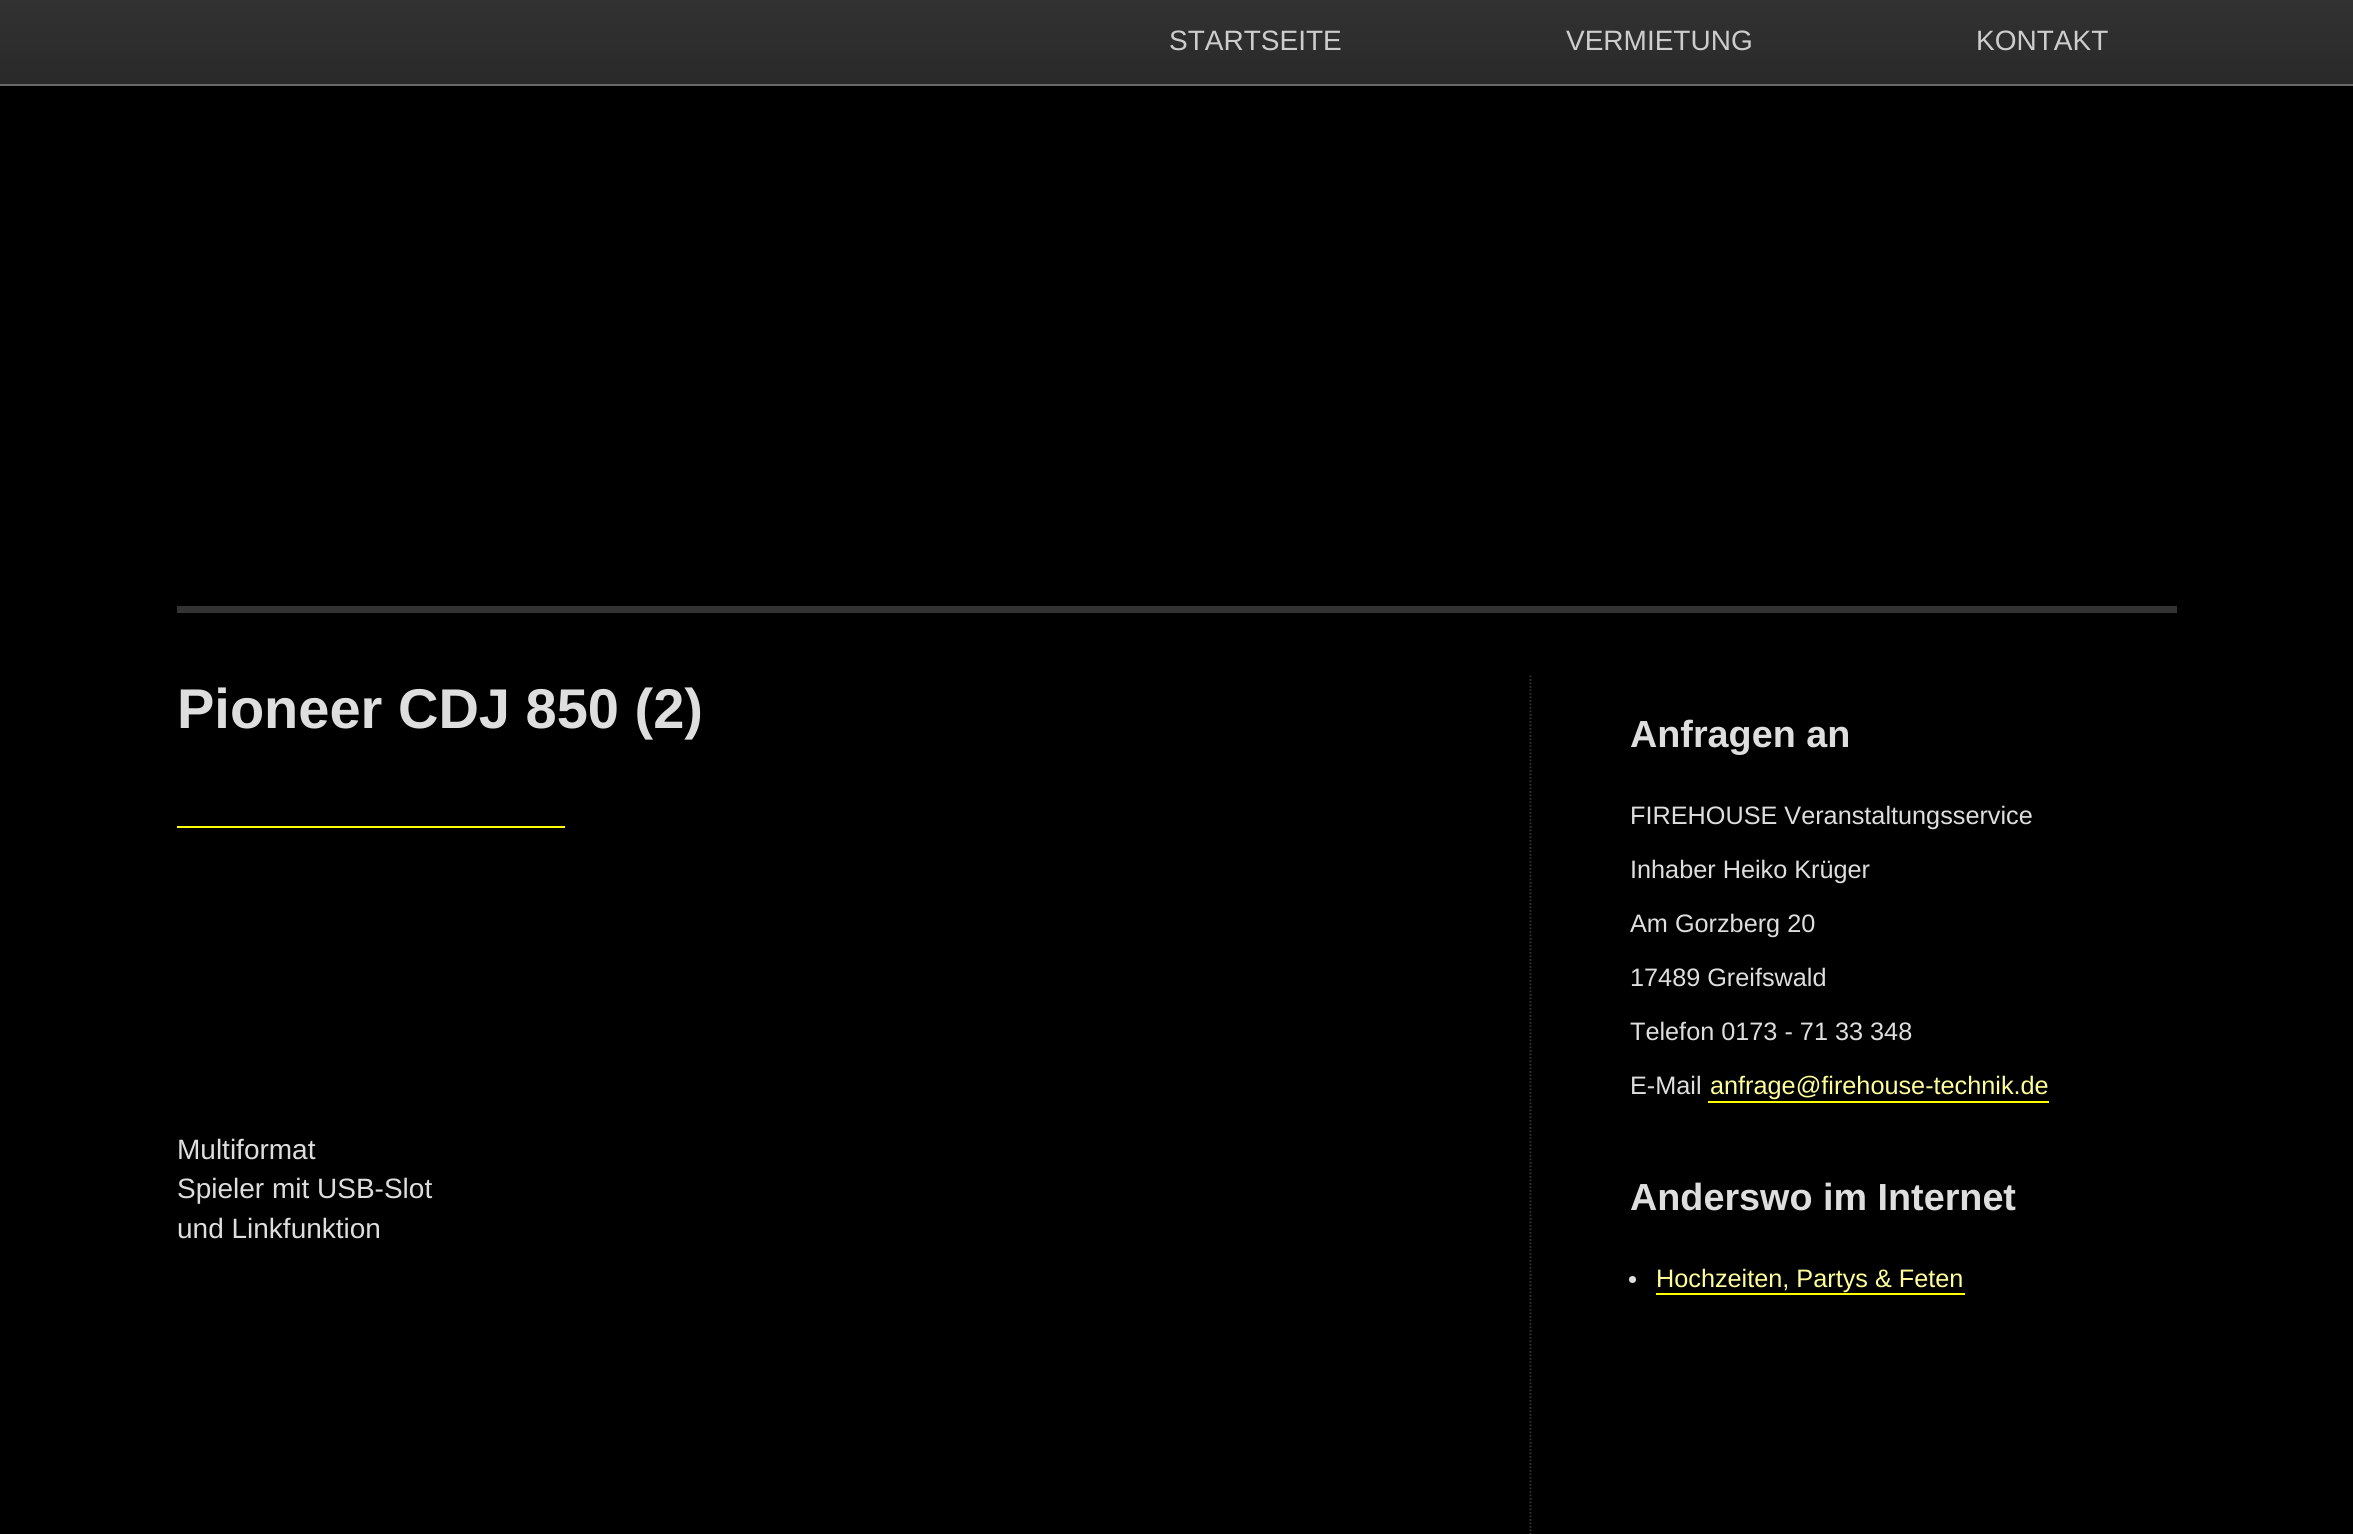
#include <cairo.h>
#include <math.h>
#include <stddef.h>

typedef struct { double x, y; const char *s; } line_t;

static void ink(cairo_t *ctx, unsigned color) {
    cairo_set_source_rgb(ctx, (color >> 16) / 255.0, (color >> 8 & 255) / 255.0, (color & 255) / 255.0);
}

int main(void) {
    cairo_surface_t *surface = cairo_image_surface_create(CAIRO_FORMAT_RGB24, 2353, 1534);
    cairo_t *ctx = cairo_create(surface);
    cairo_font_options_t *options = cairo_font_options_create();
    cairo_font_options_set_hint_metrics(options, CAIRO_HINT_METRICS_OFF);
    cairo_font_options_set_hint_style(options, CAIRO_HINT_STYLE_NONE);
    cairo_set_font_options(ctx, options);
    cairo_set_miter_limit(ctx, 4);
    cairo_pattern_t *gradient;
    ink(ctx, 0x000000);
    cairo_paint(ctx);
    gradient = cairo_pattern_create_linear(0, 0, 0, 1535);
    cairo_pattern_add_color_stop_rgba(gradient, 0, 0.196, 0.196, 0.196, 1);
    cairo_pattern_add_color_stop_rgba(gradient, 0.3, 0.008, 0.008, 0.008, 1);
    cairo_set_source(ctx, gradient);
    cairo_pattern_destroy(gradient);
    cairo_rectangle(ctx, 0, 0, 2353, 84);
    cairo_fill(ctx);
    ink(ctx, 0x696969);
    cairo_rectangle(ctx, 0, 84, 2353, 2);
    cairo_fill(ctx);
    cairo_select_font_face(ctx, "Liberation Sans", CAIRO_FONT_SLANT_NORMAL, CAIRO_FONT_WEIGHT_NORMAL);
    cairo_set_font_size(ctx, 28);
    ink(ctx, 0xCDCDCD);
    {
        static const line_t items[] = {
            {1169, 50, "STARTSEITE"},
            {1566, 50, "VERMIETUNG"},
            {1976, 50, "KONTAKT"},
        };
        for (size_t i = 0; i < sizeof items / sizeof *items; i++) {
            cairo_move_to(ctx, items[i].x, items[i].y);
            cairo_show_text(ctx, items[i].s);
        }
    }
    ink(ctx, 0x333333);
    cairo_rectangle(ctx, 177, 606, 2000, 7);
    cairo_fill(ctx);
    cairo_new_path(ctx);
    cairo_move_to(ctx, 1530.5, 675.5);
    cairo_line_to(ctx, 1530.5, 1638);
    cairo_set_line_width(ctx, 1.8);
    cairo_set_dash(ctx, (double[]){1.75, 1.75}, 2, 0);
    cairo_stroke(ctx);
    cairo_select_font_face(ctx, "Liberation Sans", CAIRO_FONT_SLANT_NORMAL, CAIRO_FONT_WEIGHT_BOLD);
    cairo_set_font_size(ctx, 56);
    ink(ctx, 0xDEDEDE);
    cairo_move_to(ctx, 177, 728);
    cairo_show_text(ctx, "Pioneer CDJ 850 (2)");
    ink(ctx, 0xFFFF00);
    cairo_rectangle(ctx, 177, 826, 388, 2);
    cairo_fill(ctx);
    cairo_select_font_face(ctx, "Liberation Sans", CAIRO_FONT_SLANT_NORMAL, CAIRO_FONT_WEIGHT_NORMAL);
    cairo_set_font_size(ctx, 28);
    ink(ctx, 0xDEDEDE);
    {
        static const line_t items[] = {
            {177, 1159, "Multiformat"},
            {177, 1198, "Spieler mit USB-Slot"},
            {177, 1238, "und Linkfunktion"},
        };
        for (size_t i = 0; i < sizeof items / sizeof *items; i++) {
            cairo_move_to(ctx, items[i].x, items[i].y);
            cairo_show_text(ctx, items[i].s);
        }
    }
    cairo_select_font_face(ctx, "Liberation Sans", CAIRO_FONT_SLANT_NORMAL, CAIRO_FONT_WEIGHT_BOLD);
    cairo_set_font_size(ctx, 37.75);
    cairo_move_to(ctx, 1630, 747);
    cairo_show_text(ctx, "Anfragen an");
    cairo_select_font_face(ctx, "Liberation Sans", CAIRO_FONT_SLANT_NORMAL, CAIRO_FONT_WEIGHT_NORMAL);
    cairo_set_font_size(ctx, 25.25);
    {
        static const line_t items[] = {
            {1630, 824, "FIREHOUSE Veranstaltungsservice"},
            {1630, 878, "Inhaber Heiko Krüger"},
            {1630, 932, "Am Gorzberg 20"},
            {1630, 986, "17489 Greifswald"},
            {1630, 1040, "Telefon 0173 - 71 33 348"},
            {1630, 1094, "E-Mail"},
        };
        for (size_t i = 0; i < sizeof items / sizeof *items; i++) {
            cairo_move_to(ctx, items[i].x, items[i].y);
            cairo_show_text(ctx, items[i].s);
        }
    }
    ink(ctx, 0xFFFF99);
    cairo_move_to(ctx, 1710, 1094);
    cairo_show_text(ctx, "anfrage@firehouse-technik.de");
    ink(ctx, 0xFFFF00);
    cairo_rectangle(ctx, 1708, 1101, 341, 2);
    cairo_fill(ctx);
    cairo_select_font_face(ctx, "Liberation Sans", CAIRO_FONT_SLANT_NORMAL, CAIRO_FONT_WEIGHT_BOLD);
    cairo_set_font_size(ctx, 37.75);
    ink(ctx, 0xDEDEDE);
    cairo_move_to(ctx, 1630, 1210);
    cairo_show_text(ctx, "Anderswo im Internet");
    cairo_new_path(ctx);
    cairo_arc(ctx, 1632.5, 1279.5, 3.5, 0, 2 * M_PI);
    cairo_fill(ctx);
    cairo_select_font_face(ctx, "Liberation Sans", CAIRO_FONT_SLANT_NORMAL, CAIRO_FONT_WEIGHT_NORMAL);
    cairo_set_font_size(ctx, 25.25);
    ink(ctx, 0xFFFF99);
    cairo_move_to(ctx, 1656, 1287);
    cairo_show_text(ctx, "Hochzeiten, Partys & Feten");
    ink(ctx, 0xFFFF00);
    cairo_rectangle(ctx, 1656, 1293, 309, 2);
    cairo_fill(ctx);
    cairo_surface_write_to_png(surface, "image.png");
    cairo_font_options_destroy(options);
    cairo_destroy(ctx);
    cairo_surface_destroy(surface);
    return 0;
}
